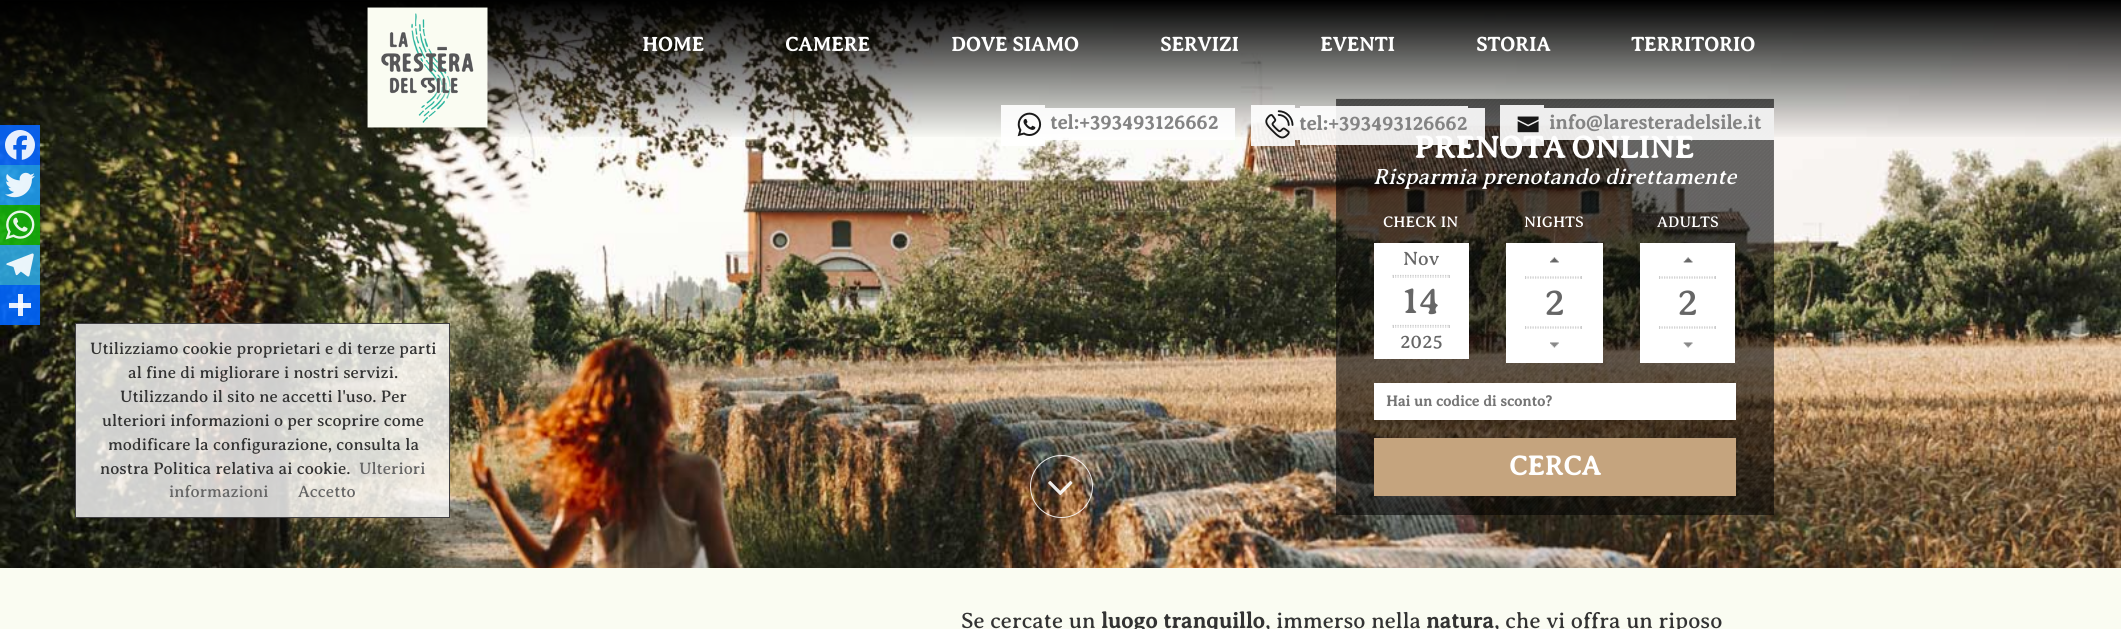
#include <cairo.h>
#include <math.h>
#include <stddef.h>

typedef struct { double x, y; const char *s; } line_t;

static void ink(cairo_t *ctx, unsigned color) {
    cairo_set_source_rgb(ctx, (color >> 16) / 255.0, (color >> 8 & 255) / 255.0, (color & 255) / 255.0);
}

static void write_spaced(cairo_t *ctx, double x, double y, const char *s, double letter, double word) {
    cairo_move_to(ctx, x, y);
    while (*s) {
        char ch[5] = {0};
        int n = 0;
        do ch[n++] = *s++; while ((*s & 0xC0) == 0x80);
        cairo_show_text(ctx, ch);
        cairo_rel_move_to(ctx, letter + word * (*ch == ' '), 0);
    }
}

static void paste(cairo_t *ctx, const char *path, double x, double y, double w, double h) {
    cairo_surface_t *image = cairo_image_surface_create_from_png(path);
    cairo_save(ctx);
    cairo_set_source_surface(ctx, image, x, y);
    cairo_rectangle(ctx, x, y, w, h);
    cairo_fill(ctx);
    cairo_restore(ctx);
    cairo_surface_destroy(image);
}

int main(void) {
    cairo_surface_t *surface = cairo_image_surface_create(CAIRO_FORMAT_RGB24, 2121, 629);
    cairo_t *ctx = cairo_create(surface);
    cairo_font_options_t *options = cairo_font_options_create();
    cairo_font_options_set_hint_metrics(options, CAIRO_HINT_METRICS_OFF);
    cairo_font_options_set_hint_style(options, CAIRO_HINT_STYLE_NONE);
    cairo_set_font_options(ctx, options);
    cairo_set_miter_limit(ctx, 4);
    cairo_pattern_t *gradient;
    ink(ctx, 0xFAFCF2);
    cairo_paint(ctx);
    paste(ctx, "media/9.png", 0, 1, 2121, 567);
    paste(ctx, "media/10.png", 1336, 98, 438, 417);
    cairo_set_source_rgba(ctx, 0, 0, 0, 0.5);
    cairo_rectangle(ctx, 1336, 99, 438, 416);
    cairo_fill(ctx);
    cairo_select_font_face(ctx, "Averia Serif Libre", CAIRO_FONT_SLANT_NORMAL, CAIRO_FONT_WEIGHT_BOLD);
    cairo_set_font_size(ctx, 31.5);
    ink(ctx, 0xFFFFFF);
    write_spaced(ctx, 1414, 158, "PRENOTA ONLINE", 0, -2);
    gradient = cairo_pattern_create_linear(1061, 0, 1061, 140);
    cairo_pattern_add_color_stop_rgba(gradient, 0, 0, 0, 0, 1);
    cairo_pattern_add_color_stop_rgba(gradient, 1, 0, 0, 0, 0);
    cairo_set_source(ctx, gradient);
    cairo_pattern_destroy(gradient);
    cairo_rectangle(ctx, 0, 0, 2121, 137);
    cairo_fill(ctx);
    paste(ctx, "media/1.png", 367, 7, 121, 121);
    cairo_set_font_size(ctx, 20);
    ink(ctx, 0xFFFFFF);
    {
        static const line_t items[] = {
            {642, 51, "HOME"},
            {785, 51, "CAMERE"},
            {951, 51, "DOVE SIAMO"},
            {1160, 51, "SERVIZI"},
            {1320, 51, "EVENTI"},
            {1476, 51, "STORIA"},
            {1631, 51, "TERRITORIO"},
        };
        for (size_t i = 0; i < sizeof items / sizeof *items; i++) {
            cairo_move_to(ctx, items[i].x, items[i].y);
            cairo_show_text(ctx, items[i].s);
        }
    }
    cairo_set_source_rgba(ctx, 1, 1, 1, 0.9);
    cairo_rectangle(ctx, 1001, 105, 44, 41);
    cairo_fill(ctx);
    cairo_rectangle(ctx, 1045, 108, 5, 32);
    cairo_fill(ctx);
    cairo_rectangle(ctx, 1050, 108, 168, 32);
    cairo_fill(ctx);
    cairo_rectangle(ctx, 1218, 108, 17, 32);
    cairo_fill(ctx);
    paste(ctx, "media/2.png", 1017, 112, 25, 25);
    ink(ctx, 0x848484);
    cairo_move_to(ctx, 1050, 129);
    cairo_show_text(ctx, "tel:+393493126662");
    cairo_set_source_rgba(ctx, 1, 1, 1, 0.9);
    cairo_rectangle(ctx, 1251, 105, 44, 41);
    cairo_fill(ctx);
    cairo_rectangle(ctx, 1295, 108, 5, 32);
    cairo_fill(ctx);
    cairo_rectangle(ctx, 1300, 106, 168, 39);
    cairo_fill(ctx);
    cairo_rectangle(ctx, 1468, 108, 17, 32);
    cairo_fill(ctx);
    paste(ctx, "media/3.png", 1265, 110, 29, 29);
    ink(ctx, 0x848484);
    cairo_move_to(ctx, 1299, 130);
    cairo_show_text(ctx, "tel:+393493126662");
    cairo_set_source_rgba(ctx, 1, 1, 1, 0.9);
    cairo_rectangle(ctx, 1500, 105, 44, 41);
    cairo_fill(ctx);
    cairo_rectangle(ctx, 1544, 108, 5, 32);
    cairo_fill(ctx);
    cairo_rectangle(ctx, 1549, 108, 225, 32);
    cairo_fill(ctx);
    paste(ctx, "media/4.png", 1517, 116, 22, 17);
    ink(ctx, 0x848484);
    cairo_move_to(ctx, 1549, 129);
    cairo_show_text(ctx, "info@laresteradelsile.it");
    cairo_set_source_rgba(ctx, 0.031, 0.4, 1, 0.9);
    cairo_rectangle(ctx, 0, 125, 40, 40);
    cairo_fill(ctx);
    paste(ctx, "media/5.png", 5, 130, 30, 30);
    cairo_set_source_rgba(ctx, 0.114, 0.608, 0.941, 0.9);
    cairo_rectangle(ctx, 0, 165, 40, 40);
    cairo_fill(ctx);
    paste(ctx, "media/6.png", 5, 172, 30, 26);
    cairo_set_source_rgba(ctx, 0.071, 0.686, 0.039, 0.9);
    cairo_rectangle(ctx, 0, 205, 40, 40);
    cairo_fill(ctx);
    paste(ctx, "media/7.png", 5, 210, 30, 30);
    cairo_set_source_rgba(ctx, 0.173, 0.647, 0.878, 0.9);
    cairo_rectangle(ctx, 0, 245, 40, 40);
    cairo_fill(ctx);
    paste(ctx, "media/8.png", 6, 253, 28, 24);
    cairo_set_source_rgba(ctx, 0.004, 0.4, 1, 0.9);
    cairo_rectangle(ctx, 0, 285, 40, 40);
    cairo_fill(ctx);
    cairo_set_source_rgba(ctx, 1, 1, 1, 0.9);
    cairo_rectangle(ctx, 18, 294, 5, 22);
    cairo_fill(ctx);
    cairo_rectangle(ctx, 9, 303, 22, 5);
    cairo_fill(ctx);
    cairo_set_source_rgba(ctx, 1, 1, 1, 0.8);
    cairo_rectangle(ctx, 75.5, 323.5, 374, 194);
    cairo_fill_preserve(ctx);
    ink(ctx, 0x3E3D41);
    cairo_set_line_width(ctx, 1);
    cairo_stroke(ctx);
    cairo_select_font_face(ctx, "Averia Serif Libre", CAIRO_FONT_SLANT_NORMAL, CAIRO_FONT_WEIGHT_NORMAL);
    cairo_set_font_size(ctx, 16.75);
    ink(ctx, 0x333333);
    {
        static const line_t items[] = {
            {90, 354, "Utilizziamo cookie proprietari e di terze parti"},
            {128, 378, "al fine di migliorare i nostri servizi."},
            {120, 402, "Utilizzando il sito ne accetti l'uso. Per"},
            {102, 426, "ulteriori informazioni o per scoprire come"},
            {108, 450, "modificare la configurazione, consulta la"},
            {100, 474, "nostra Politica relativa ai cookie."},
        };
        for (size_t i = 0; i < sizeof items / sizeof *items; i++) {
            cairo_move_to(ctx, items[i].x, items[i].y);
            cairo_show_text(ctx, items[i].s);
        }
    }
    ink(ctx, 0x666666);
    {
        static const line_t items[] = {
            {359, 474, "Ulteriori"},
            {169, 497, "informazioni"},
            {298, 497, "Accetto"},
        };
        for (size_t i = 0; i < sizeof items / sizeof *items; i++) {
            cairo_move_to(ctx, items[i].x, items[i].y);
            cairo_show_text(ctx, items[i].s);
        }
    }
    cairo_select_font_face(ctx, "Averia Serif Libre", CAIRO_FONT_SLANT_ITALIC, CAIRO_FONT_WEIGHT_NORMAL);
    cairo_set_font_size(ctx, 22.1);
    ink(ctx, 0xFFFFFF);
    cairo_move_to(ctx, 1373, 184);
    cairo_show_text(ctx, "Risparmia prenotando direttamente");
    cairo_select_font_face(ctx, "Averia Serif Libre", CAIRO_FONT_SLANT_NORMAL, CAIRO_FONT_WEIGHT_NORMAL);
    cairo_set_font_size(ctx, 15.5);
    cairo_move_to(ctx, 1383, 227);
    cairo_show_text(ctx, "CHECK IN");
    cairo_rectangle(ctx, 1374, 243, 95, 116);
    cairo_fill(ctx);
    cairo_set_font_size(ctx, 19.5);
    ink(ctx, 0x666666);
    cairo_move_to(ctx, 1403, 265);
    cairo_show_text(ctx, "Nov");
    cairo_new_path(ctx);
    cairo_move_to(ctx, 1392.5, 275.5);
    cairo_line_to(ctx, 1450, 275.5);
    ink(ctx, 0xCCCCCC);
    cairo_set_line_width(ctx, 1.2);
    cairo_set_dash(ctx, (double[]){1.25, 1.25}, 2, 0);
    cairo_stroke(ctx);
    cairo_rectangle(ctx, 1449, 275, 1, 3);
    cairo_fill(ctx);
    cairo_new_path(ctx);
    cairo_move_to(ctx, 1392.5, 277);
    cairo_line_to(ctx, 1450, 277);
    cairo_stroke(ctx);
    cairo_rectangle(ctx, 1393, 275, 1, 3);
    cairo_fill(ctx);
    cairo_set_font_size(ctx, 39);
    ink(ctx, 0x666666);
    cairo_move_to(ctx, 1402, 313);
    cairo_show_text(ctx, "14");
    cairo_new_path(ctx);
    cairo_move_to(ctx, 1392.5, 325.5);
    cairo_line_to(ctx, 1450, 325.5);
    ink(ctx, 0xCCCCCC);
    cairo_stroke(ctx);
    cairo_rectangle(ctx, 1449, 325, 1, 3);
    cairo_fill(ctx);
    cairo_new_path(ctx);
    cairo_move_to(ctx, 1392.5, 327);
    cairo_line_to(ctx, 1450, 327);
    cairo_stroke(ctx);
    cairo_rectangle(ctx, 1393, 325, 1, 3);
    cairo_fill(ctx);
    cairo_set_font_size(ctx, 19.5);
    ink(ctx, 0x666666);
    cairo_move_to(ctx, 1400, 348);
    cairo_show_text(ctx, "2025");
    cairo_set_font_size(ctx, 15.5);
    ink(ctx, 0xFFFFFF);
    cairo_move_to(ctx, 1524, 227);
    cairo_show_text(ctx, "NIGHTS");
    cairo_rectangle(ctx, 1506, 243, 97, 120);
    cairo_fill(ctx);
    paste(ctx, "media/11.png", 1550, 257, 9, 6);
    cairo_new_path(ctx);
    cairo_move_to(ctx, 1525, 277);
    cairo_line_to(ctx, 1582.5, 277);
    ink(ctx, 0xCCCCCC);
    cairo_stroke(ctx);
    cairo_rectangle(ctx, 1581, 276, 1, 3);
    cairo_fill(ctx);
    cairo_new_path(ctx);
    cairo_move_to(ctx, 1525, 278);
    cairo_line_to(ctx, 1582.5, 278);
    cairo_stroke(ctx);
    cairo_rectangle(ctx, 1525, 276, 1, 3);
    cairo_fill(ctx);
    cairo_set_font_size(ctx, 39);
    ink(ctx, 0x666666);
    cairo_move_to(ctx, 1544, 315);
    cairo_show_text(ctx, "2");
    paste(ctx, "media/12.png", 1550, 342, 9, 6);
    cairo_new_path(ctx);
    cairo_move_to(ctx, 1525, 327);
    cairo_line_to(ctx, 1582.5, 327);
    ink(ctx, 0xCCCCCC);
    cairo_stroke(ctx);
    cairo_rectangle(ctx, 1581, 326, 1, 3);
    cairo_fill(ctx);
    cairo_new_path(ctx);
    cairo_move_to(ctx, 1525, 328);
    cairo_line_to(ctx, 1582.5, 328);
    cairo_stroke(ctx);
    cairo_rectangle(ctx, 1525, 326, 1, 3);
    cairo_fill(ctx);
    cairo_set_font_size(ctx, 15.5);
    ink(ctx, 0xFFFFFF);
    cairo_move_to(ctx, 1657, 227);
    cairo_show_text(ctx, "ADULTS");
    cairo_rectangle(ctx, 1640, 243, 95, 120);
    cairo_fill(ctx);
    paste(ctx, "media/13.png", 1683, 257, 10, 6);
    cairo_new_path(ctx);
    cairo_move_to(ctx, 1659, 277);
    cairo_line_to(ctx, 1716, 277);
    ink(ctx, 0xCCCCCC);
    cairo_stroke(ctx);
    cairo_rectangle(ctx, 1715, 276, 1, 3);
    cairo_fill(ctx);
    cairo_new_path(ctx);
    cairo_move_to(ctx, 1659, 278);
    cairo_line_to(ctx, 1716, 278);
    cairo_stroke(ctx);
    cairo_rectangle(ctx, 1659, 276, 1, 3);
    cairo_fill(ctx);
    cairo_set_font_size(ctx, 39);
    ink(ctx, 0x666666);
    cairo_move_to(ctx, 1677, 315);
    cairo_show_text(ctx, "2");
    paste(ctx, "media/14.png", 1683, 342, 10, 6);
    cairo_new_path(ctx);
    cairo_move_to(ctx, 1659, 327);
    cairo_line_to(ctx, 1716, 327);
    ink(ctx, 0xCCCCCC);
    cairo_stroke(ctx);
    cairo_rectangle(ctx, 1715, 326, 1, 3);
    cairo_fill(ctx);
    cairo_new_path(ctx);
    cairo_move_to(ctx, 1659, 328);
    cairo_line_to(ctx, 1716, 328);
    cairo_stroke(ctx);
    cairo_rectangle(ctx, 1659, 326, 1, 3);
    cairo_fill(ctx);
    ink(ctx, 0xFFFFFF);
    cairo_rectangle(ctx, 1374, 383, 362, 37);
    cairo_fill(ctx);
    cairo_select_font_face(ctx, "Averia Serif Libre", CAIRO_FONT_SLANT_NORMAL, CAIRO_FONT_WEIGHT_BOLD);
    cairo_set_font_size(ctx, 15);
    ink(ctx, 0x757575);
    cairo_move_to(ctx, 1386, 406);
    cairo_show_text(ctx, "Hai un codice di sconto?");
    ink(ctx, 0xC5A47E);
    cairo_rectangle(ctx, 1374, 438, 362, 58);
    cairo_fill(ctx);
    cairo_set_font_size(ctx, 27.5);
    ink(ctx, 0xFFFFFF);
    cairo_move_to(ctx, 1509, 475);
    cairo_show_text(ctx, "CERCA");
    cairo_new_path(ctx);
    cairo_arc(ctx, 1061.5, 486.5, 31, 0, 2 * M_PI);
    cairo_set_source_rgba(ctx, 1, 1, 1, 0.9);
    cairo_set_line_width(ctx, 1);
    cairo_set_dash(ctx, NULL, 0, 0);
    cairo_stroke(ctx);
    paste(ctx, "media/15.png", 1048, 481, 25, 15);
    cairo_select_font_face(ctx, "Averia Serif Libre", CAIRO_FONT_SLANT_NORMAL, CAIRO_FONT_WEIGHT_NORMAL);
    cairo_set_font_size(ctx, 22.25);
    ink(ctx, 0x333333);
    cairo_move_to(ctx, 961, 628);
    cairo_show_text(ctx, "Se cercate un");
    cairo_select_font_face(ctx, "Averia Serif Libre", CAIRO_FONT_SLANT_NORMAL, CAIRO_FONT_WEIGHT_BOLD);
    cairo_move_to(ctx, 1101, 628);
    cairo_show_text(ctx, "luogo tranquillo");
    cairo_select_font_face(ctx, "Averia Serif Libre", CAIRO_FONT_SLANT_NORMAL, CAIRO_FONT_WEIGHT_NORMAL);
    cairo_move_to(ctx, 1265, 628);
    cairo_show_text(ctx, ", immerso nella");
    cairo_select_font_face(ctx, "Averia Serif Libre", CAIRO_FONT_SLANT_NORMAL, CAIRO_FONT_WEIGHT_BOLD);
    cairo_move_to(ctx, 1426, 628);
    cairo_show_text(ctx, "natura");
    cairo_select_font_face(ctx, "Averia Serif Libre", CAIRO_FONT_SLANT_NORMAL, CAIRO_FONT_WEIGHT_NORMAL);
    cairo_move_to(ctx, 1494, 628);
    cairo_show_text(ctx, ", che vi offra un riposo");
    cairo_surface_write_to_png(surface, "image.png");
    cairo_font_options_destroy(options);
    cairo_destroy(ctx);
    cairo_surface_destroy(surface);
    return 0;
}
